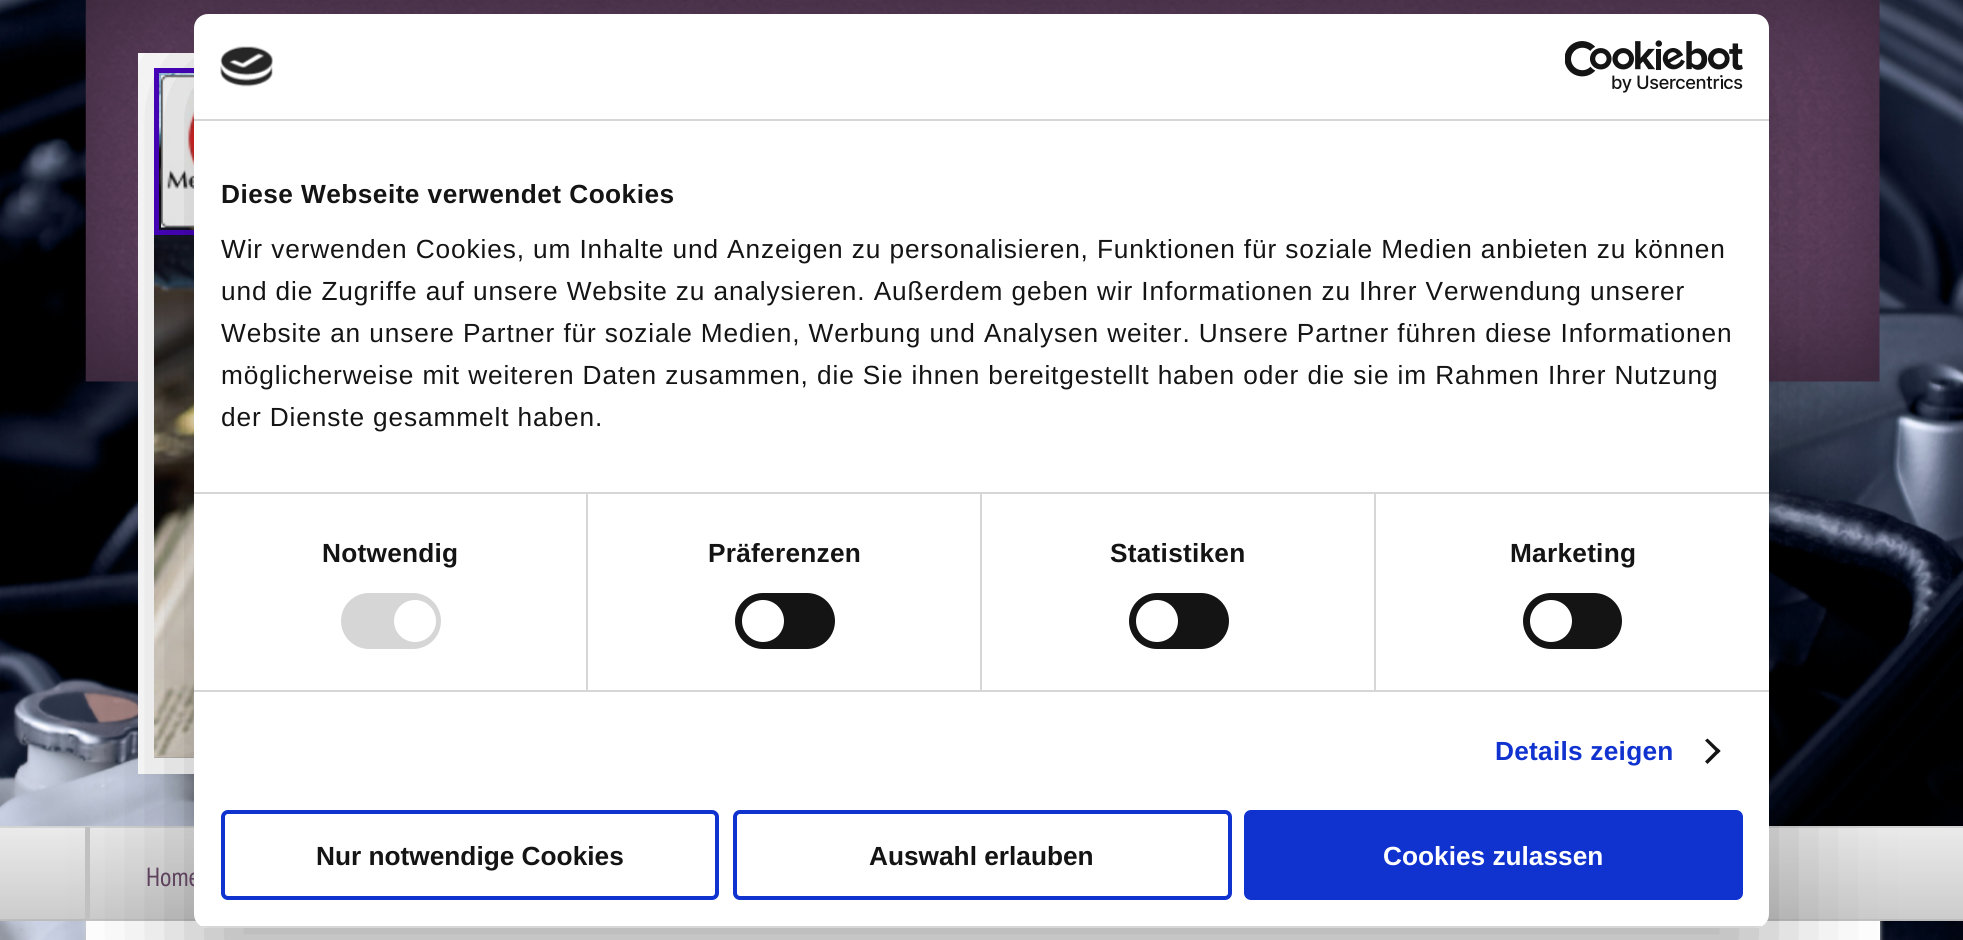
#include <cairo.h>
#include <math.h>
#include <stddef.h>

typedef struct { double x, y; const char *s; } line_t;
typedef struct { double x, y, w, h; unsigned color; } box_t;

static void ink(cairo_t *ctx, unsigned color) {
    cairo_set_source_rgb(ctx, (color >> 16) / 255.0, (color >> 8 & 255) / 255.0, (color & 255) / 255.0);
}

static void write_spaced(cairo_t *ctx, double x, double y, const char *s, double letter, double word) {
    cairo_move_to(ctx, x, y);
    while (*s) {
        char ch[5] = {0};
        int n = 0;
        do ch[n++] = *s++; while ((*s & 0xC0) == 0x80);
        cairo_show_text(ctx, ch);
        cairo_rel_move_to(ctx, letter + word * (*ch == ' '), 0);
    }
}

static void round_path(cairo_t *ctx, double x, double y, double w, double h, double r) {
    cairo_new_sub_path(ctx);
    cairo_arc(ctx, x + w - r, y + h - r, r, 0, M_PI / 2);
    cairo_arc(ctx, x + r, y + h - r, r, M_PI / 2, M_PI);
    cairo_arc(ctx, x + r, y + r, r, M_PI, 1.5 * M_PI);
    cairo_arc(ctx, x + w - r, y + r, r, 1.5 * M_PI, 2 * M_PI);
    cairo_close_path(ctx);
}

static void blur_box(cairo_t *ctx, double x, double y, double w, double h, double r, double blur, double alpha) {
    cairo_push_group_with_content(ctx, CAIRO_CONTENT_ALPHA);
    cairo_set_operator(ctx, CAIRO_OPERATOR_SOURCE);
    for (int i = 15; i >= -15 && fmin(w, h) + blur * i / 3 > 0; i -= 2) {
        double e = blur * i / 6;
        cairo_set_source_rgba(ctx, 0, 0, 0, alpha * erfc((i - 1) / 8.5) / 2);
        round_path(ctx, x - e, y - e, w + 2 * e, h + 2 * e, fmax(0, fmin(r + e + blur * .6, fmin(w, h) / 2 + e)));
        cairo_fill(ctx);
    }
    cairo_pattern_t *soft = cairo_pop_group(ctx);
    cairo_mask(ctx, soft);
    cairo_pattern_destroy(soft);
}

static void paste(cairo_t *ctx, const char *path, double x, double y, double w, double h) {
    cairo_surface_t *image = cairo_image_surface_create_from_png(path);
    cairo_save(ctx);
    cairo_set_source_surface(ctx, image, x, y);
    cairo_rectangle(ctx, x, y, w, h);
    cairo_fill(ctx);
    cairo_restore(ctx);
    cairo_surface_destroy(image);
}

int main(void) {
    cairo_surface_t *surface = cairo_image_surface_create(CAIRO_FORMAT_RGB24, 1963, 940);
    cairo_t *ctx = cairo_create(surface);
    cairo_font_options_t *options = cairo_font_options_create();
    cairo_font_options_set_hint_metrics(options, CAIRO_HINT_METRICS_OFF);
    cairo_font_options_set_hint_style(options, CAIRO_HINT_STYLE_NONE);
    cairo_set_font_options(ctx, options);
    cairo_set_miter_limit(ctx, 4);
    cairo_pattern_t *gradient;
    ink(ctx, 0xFFFFFF);
    cairo_paint(ctx);
    paste(ctx, "media/1.png", 0, 0, 1963, 940);
    paste(ctx, "media/4.png", 85, 0, 1795, 382);
    ink(ctx, 0xFFFFFF);
    cairo_rectangle(ctx, 138, 53, 56, 721);
    cairo_fill(ctx);
    ink(ctx, 0xA0A0A0);
    cairo_rectangle(ctx, 154, 757, 40, 1);
    cairo_fill(ctx);
    paste(ctx, "media/6.png", 154, 73, 40, 685);
    cairo_rectangle(ctx, 156.5, 70.5, 174, 162);
    ink(ctx, 0x4A03C1);
    cairo_set_line_width(ctx, 5);
    cairo_stroke(ctx);
    paste(ctx, "media/5.png", 161, 75, 33, 153);
    gradient = cairo_pattern_create_linear(982, 828, 982, 919);
    cairo_pattern_add_color_stop_rgba(gradient, 0, 0.918, 0.918, 0.918, 1);
    cairo_pattern_add_color_stop_rgba(gradient, 1, 0.8, 0.8, 0.8, 1);
    cairo_set_source(ctx, gradient);
    cairo_pattern_destroy(gradient);
    cairo_rectangle(ctx, 0, 828, 1963, 91);
    cairo_fill(ctx);
    {
        static const box_t items[] = {
            {0, 826, 1963, 2, 0xD3D3D3},
            {85, 827, 5, 92, 0xC2C2C2},
            {0, 919, 1963, 2, 0xBBBBBB},
        };
        for (size_t i = 0; i < sizeof items / sizeof *items; i++) {
            ink(ctx, items[i].color);
            cairo_rectangle(ctx, items[i].x, items[i].y, items[i].w, items[i].h);
            cairo_fill(ctx);
        }
    }
    ink(ctx, 0xCCCCCC);
    blur_box(ctx, 86, 921, 1794, 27, 0, 2.5, 1);
    ink(ctx, 0xFFFFFF);
    cairo_rectangle(ctx, 86, 921, 1794, 19);
    cairo_fill(ctx);
    ink(ctx, 0x000000);
    blur_box(ctx, 194, 70, 1575, 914, 14, 59.5, 0.3);
    cairo_select_font_face(ctx, "PT Sans Narrow", CAIRO_FONT_SLANT_NORMAL, CAIRO_FONT_WEIGHT_NORMAL);
    cairo_set_font_size(ctx, 26.25);
    ink(ctx, 0x5E415D);
    cairo_move_to(ctx, 146, 886);
    cairo_show_text(ctx, "Home");
    ink(ctx, 0xFFFFFF);
    round_path(ctx, 194, 14, 1575, 914, 14);
    cairo_fill(ctx);
    ink(ctx, 0xD6D6D6);
    cairo_rectangle(ctx, 194, 119, 1575, 2);
    cairo_fill(ctx);
    paste(ctx, "media/2.png", 220, 46, 53, 41);
    paste(ctx, "media/3.png", 1565, 40, 178, 53);
    cairo_rectangle(ctx, 194, 492, 1575, 2);
    cairo_fill(ctx);
    cairo_select_font_face(ctx, "Liberation Sans", CAIRO_FONT_SLANT_NORMAL, CAIRO_FONT_WEIGHT_BOLD);
    ink(ctx, 0x141414);
    write_spaced(ctx, 221, 203, "Diese Webseite verwendet Cookies", 0.45, 0);
    cairo_select_font_face(ctx, "Liberation Sans", CAIRO_FONT_SLANT_NORMAL, CAIRO_FONT_WEIGHT_NORMAL);
    {
        static const line_t items[] = {
            {221, 258, "Wir verwenden Cookies, um Inhalte und Anzeigen zu personalisieren, Funktionen für soziale Medien anbieten zu können"},
            {221, 300, "und die Zugriffe auf unsere Website zu analysieren. Außerdem geben wir Informationen zu Ihrer Verwendung unserer"},
            {221, 342, "Website an unsere Partner für soziale Medien, Werbung und Analysen weiter. Unsere Partner führen diese Informationen"},
            {221, 384, "möglicherweise mit weiteren Daten zusammen, die Sie ihnen bereitgestellt haben oder die sie im Rahmen Ihrer Nutzung"},
            {221, 426, "der Dienste gesammelt haben."},
        };
        for (size_t i = 0; i < sizeof items / sizeof *items; i++) {
            write_spaced(ctx, items[i].x, items[i].y, items[i].s, 0.88, 0);
        }
    }
    ink(ctx, 0xD6D6D6);
    cairo_rectangle(ctx, 194, 690, 1575, 2);
    cairo_fill(ctx);
    cairo_rectangle(ctx, 586, 494, 2, 196);
    cairo_fill(ctx);
    cairo_select_font_face(ctx, "Liberation Sans", CAIRO_FONT_SLANT_NORMAL, CAIRO_FONT_WEIGHT_BOLD);
    ink(ctx, 0x141414);
    write_spaced(ctx, 322, 562, "Notwendig", 0.25, 0);
    ink(ctx, 0xD6D6D6);
    round_path(ctx, 341, 593, 100, 56, 28);
    cairo_fill(ctx);
    ink(ctx, 0xFFFFFF);
    cairo_arc(ctx, 415, 621, 21, 0, 2 * M_PI);
    cairo_fill(ctx);
    ink(ctx, 0xD6D6D6);
    cairo_rectangle(ctx, 980, 494, 2, 196);
    cairo_fill(ctx);
    ink(ctx, 0x141414);
    write_spaced(ctx, 708, 562, "Präferenzen", 0.25, 0);
    round_path(ctx, 735, 593, 100, 56, 28);
    cairo_fill(ctx);
    ink(ctx, 0xFFFFFF);
    cairo_arc(ctx, 763, 621, 21, 0, 2 * M_PI);
    cairo_fill(ctx);
    ink(ctx, 0xD6D6D6);
    cairo_rectangle(ctx, 1374, 494, 2, 196);
    cairo_fill(ctx);
    ink(ctx, 0x141414);
    write_spaced(ctx, 1110, 562, "Statistiken", 0.25, 0);
    round_path(ctx, 1129, 593, 100, 56, 28);
    cairo_fill(ctx);
    ink(ctx, 0xFFFFFF);
    cairo_arc(ctx, 1157, 621, 21, 0, 2 * M_PI);
    cairo_fill(ctx);
    ink(ctx, 0x141414);
    write_spaced(ctx, 1510, 562, "Marketing", 0.25, 0);
    round_path(ctx, 1523, 593, 99, 56, 28);
    cairo_fill(ctx);
    ink(ctx, 0xFFFFFF);
    cairo_arc(ctx, 1551, 621, 21, 0, 2 * M_PI);
    cairo_fill(ctx);
    ink(ctx, 0x1032CF);
    write_spaced(ctx, 1495, 760, "Details zeigen", 0.25, 0);
    ink(ctx, 0x141414);
    cairo_new_path(ctx);
    cairo_move_to(ctx, 1707.5, 738.5);
    cairo_line_to(ctx, 1720.5, 751);
    cairo_line_to(ctx, 1718, 753.5);
    cairo_line_to(ctx, 1705, 740.5);
    cairo_close_path(ctx);
    cairo_fill(ctx);
    cairo_new_path(ctx);
    cairo_move_to(ctx, 1718, 748.5);
    cairo_line_to(ctx, 1720.5, 751);
    cairo_line_to(ctx, 1707.5, 764);
    cairo_line_to(ctx, 1705, 761.5);
    cairo_close_path(ctx);
    cairo_fill(ctx);
    cairo_save(ctx);
    round_path(ctx, 194, 14, 1575, 914, 14);
    cairo_clip(ctx);
    ink(ctx, 0xD6D6D6);
    cairo_rectangle(ctx, 194, 926, 1575, 2);
    cairo_fill(ctx);
    cairo_restore(ctx);
    round_path(ctx, 223, 812, 494, 86, 5);
    ink(ctx, 0x1032CF);
    cairo_set_line_width(ctx, 4);
    cairo_stroke(ctx);
    ink(ctx, 0x141414);
    cairo_move_to(ctx, 316, 865);
    cairo_show_text(ctx, "Nur notwendige Cookies");
    round_path(ctx, 735, 812, 495, 86, 5);
    ink(ctx, 0x1032CF);
    cairo_stroke(ctx);
    ink(ctx, 0x141414);
    cairo_move_to(ctx, 869, 865);
    cairo_show_text(ctx, "Auswahl erlauben");
    ink(ctx, 0x1032CF);
    round_path(ctx, 1246, 812, 495, 86, 5);
    cairo_fill_preserve(ctx);
    cairo_stroke(ctx);
    ink(ctx, 0xFFFFFF);
    cairo_move_to(ctx, 1383, 865);
    cairo_show_text(ctx, "Cookies zulassen");
    cairo_surface_write_to_png(surface, "image.png");
    cairo_font_options_destroy(options);
    cairo_destroy(ctx);
    cairo_surface_destroy(surface);
    return 0;
}
